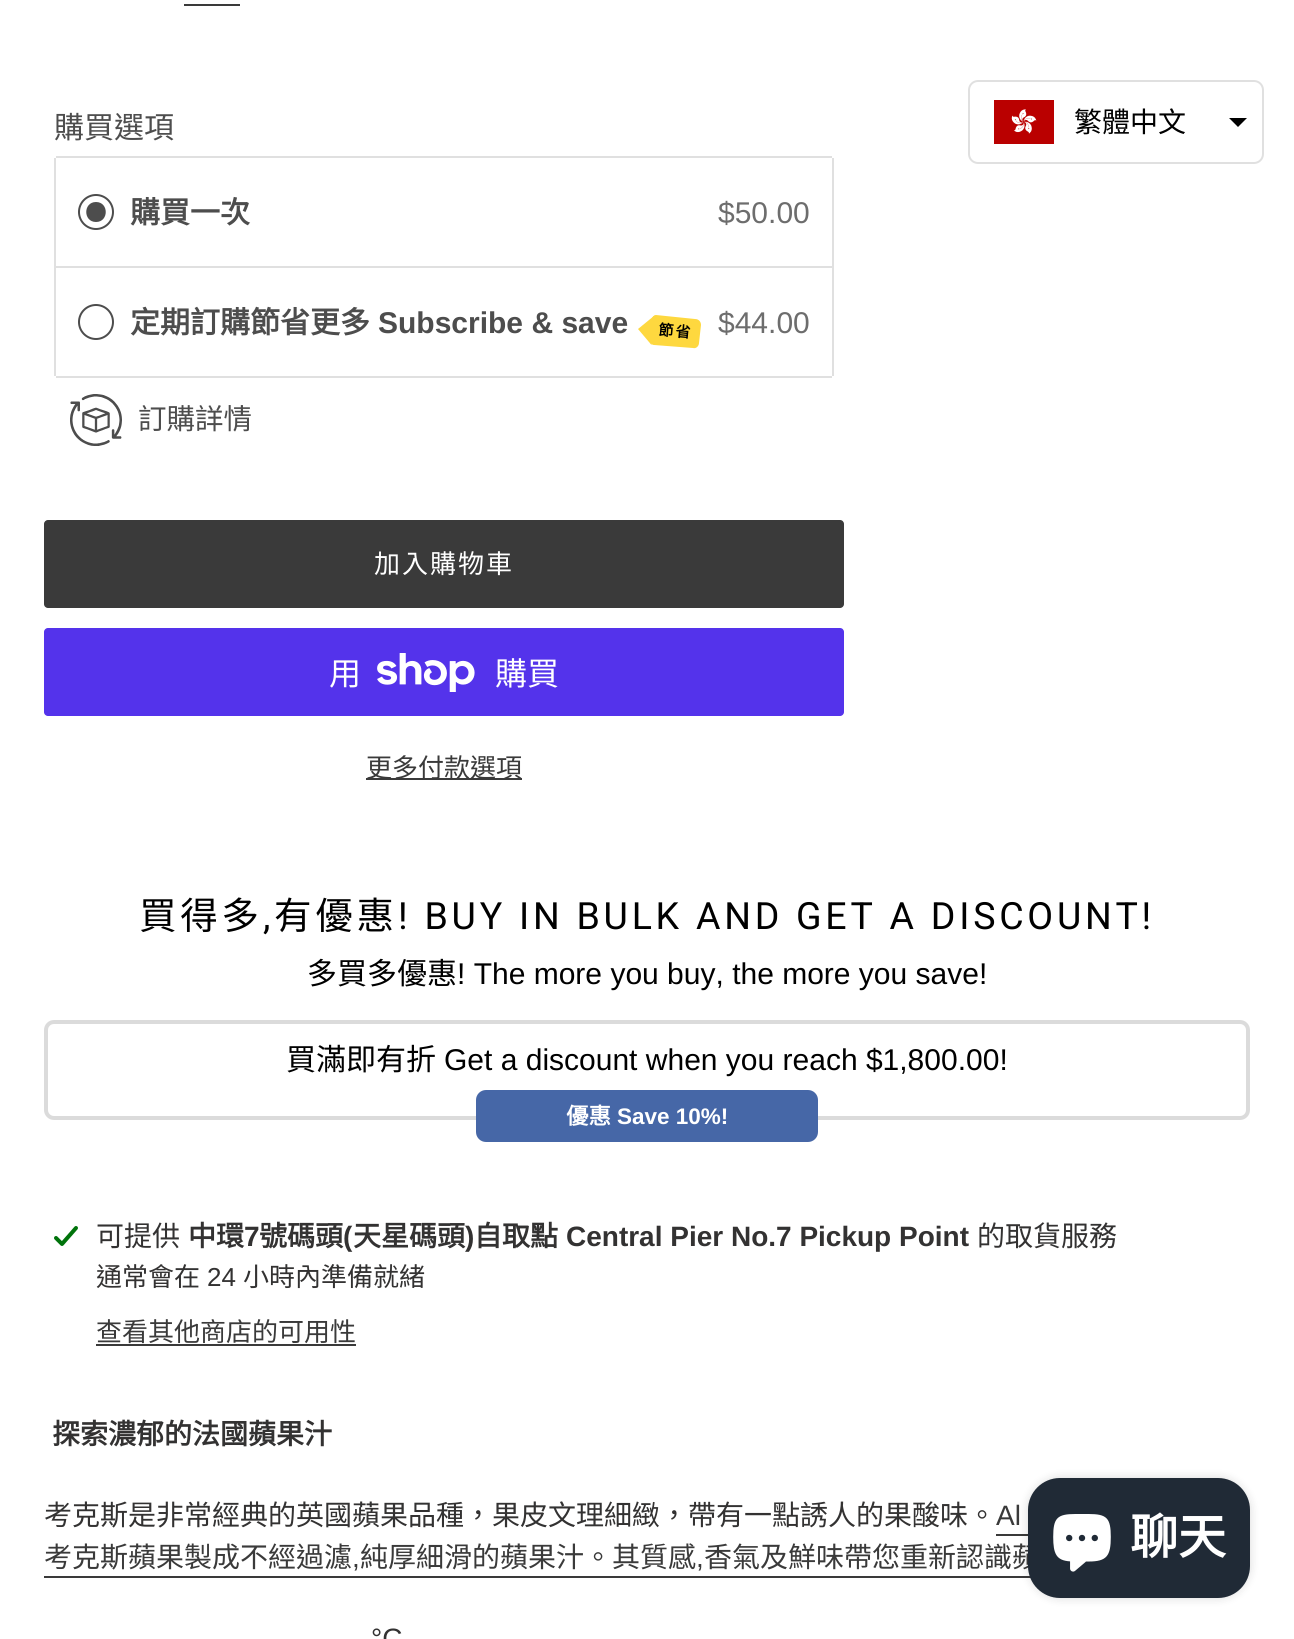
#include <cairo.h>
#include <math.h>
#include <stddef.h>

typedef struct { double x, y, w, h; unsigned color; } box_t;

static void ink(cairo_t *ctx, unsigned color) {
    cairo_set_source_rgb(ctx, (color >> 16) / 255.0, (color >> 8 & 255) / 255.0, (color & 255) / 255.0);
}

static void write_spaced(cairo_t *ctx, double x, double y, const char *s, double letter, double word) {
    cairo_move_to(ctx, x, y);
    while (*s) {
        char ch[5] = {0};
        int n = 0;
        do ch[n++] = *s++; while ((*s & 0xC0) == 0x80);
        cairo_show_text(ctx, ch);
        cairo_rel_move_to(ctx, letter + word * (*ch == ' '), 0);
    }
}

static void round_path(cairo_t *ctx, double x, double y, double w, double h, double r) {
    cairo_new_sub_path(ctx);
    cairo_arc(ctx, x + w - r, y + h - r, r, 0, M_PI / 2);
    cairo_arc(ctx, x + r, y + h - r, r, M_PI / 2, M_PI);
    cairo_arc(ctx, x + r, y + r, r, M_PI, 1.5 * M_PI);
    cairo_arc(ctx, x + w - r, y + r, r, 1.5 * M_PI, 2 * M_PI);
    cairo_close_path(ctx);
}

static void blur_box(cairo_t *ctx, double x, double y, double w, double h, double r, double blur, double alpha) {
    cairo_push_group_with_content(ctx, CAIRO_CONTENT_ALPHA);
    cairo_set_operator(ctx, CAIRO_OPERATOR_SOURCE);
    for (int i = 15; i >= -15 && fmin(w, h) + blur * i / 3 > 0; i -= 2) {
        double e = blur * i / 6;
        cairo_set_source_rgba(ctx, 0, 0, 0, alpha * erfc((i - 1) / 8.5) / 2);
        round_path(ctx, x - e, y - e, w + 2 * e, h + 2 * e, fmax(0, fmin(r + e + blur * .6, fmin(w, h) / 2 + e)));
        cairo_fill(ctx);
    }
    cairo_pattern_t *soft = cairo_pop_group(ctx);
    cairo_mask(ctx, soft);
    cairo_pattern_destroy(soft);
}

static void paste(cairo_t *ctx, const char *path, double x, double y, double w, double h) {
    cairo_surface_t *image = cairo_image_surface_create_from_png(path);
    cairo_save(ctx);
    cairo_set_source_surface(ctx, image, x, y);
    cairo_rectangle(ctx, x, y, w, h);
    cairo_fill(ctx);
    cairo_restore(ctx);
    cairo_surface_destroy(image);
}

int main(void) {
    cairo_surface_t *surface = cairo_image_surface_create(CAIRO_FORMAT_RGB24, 1294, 1639);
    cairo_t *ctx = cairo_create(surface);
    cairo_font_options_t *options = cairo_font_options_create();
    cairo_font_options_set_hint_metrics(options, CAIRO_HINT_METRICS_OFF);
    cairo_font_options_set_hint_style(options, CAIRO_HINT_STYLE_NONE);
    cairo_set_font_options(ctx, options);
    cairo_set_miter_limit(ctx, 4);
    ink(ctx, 0xFFFFFF);
    cairo_paint(ctx);
    round_path(ctx, 969, 81, 294, 82, 9);
    ink(ctx, 0xE0E0E0);
    cairo_stroke(ctx);
    paste(ctx, "media/1.png", 994, 100, 60, 44);
    cairo_select_font_face(ctx, "Noto Sans CJK TC", CAIRO_FONT_SLANT_NORMAL, CAIRO_FONT_WEIGHT_NORMAL);
    cairo_set_font_size(ctx, 28);
    ink(ctx, 0x000000);
    cairo_move_to(ctx, 1074, 132);
    cairo_show_text(ctx, "繁體中文");
    cairo_save(ctx);
    cairo_rectangle(ctx, 1228, 118, 20, 10);
    cairo_clip(ctx);
    cairo_set_fill_rule(ctx, CAIRO_FILL_RULE_EVEN_ODD);
    cairo_new_path(ctx);
    cairo_move_to(ctx, 1248, 117);
    cairo_line_to(ctx, 1238, 127);
    cairo_line_to(ctx, 1228, 117);
    cairo_close_path(ctx);
    cairo_fill(ctx);
    cairo_restore(ctx);
    ink(ctx, 0x3A3A3A);
    cairo_rectangle(ctx, 184, 4, 56, 2);
    cairo_fill(ctx);
    cairo_set_font_size(ctx, 30);
    ink(ctx, 0x4D4D4D);
    cairo_move_to(ctx, 54, 138);
    cairo_show_text(ctx, "購買選項");
    {
        static const box_t items[] = {
            {56, 156, 776, 2, 0xE0E0E0},
            {832, 158, 2, 218, 0xE0E0E0},
            {54, 158, 2, 218, 0xE0E0E0},
            {56, 266, 776, 2, 0xE0E0E0},
        };
        for (size_t i = 0; i < sizeof items / sizeof *items; i++) {
            ink(ctx, items[i].color);
            cairo_rectangle(ctx, items[i].x, items[i].y, items[i].w, items[i].h);
            cairo_fill(ctx);
        }
    }
    cairo_new_path(ctx);
    cairo_arc(ctx, 96, 212, 17, 0, 2 * M_PI);
    ink(ctx, 0x4D4D4D);
    cairo_stroke(ctx);
    cairo_new_path(ctx);
    cairo_move_to(ctx, 96, 202);
    cairo_curve_to(ctx, 83, 202, 83, 222, 96, 222);
    cairo_curve_to(ctx, 109, 222, 109, 202, 96, 202);
    cairo_close_path(ctx);
    cairo_fill(ctx);
    cairo_select_font_face(ctx, "Noto Sans CJK TC", CAIRO_FONT_SLANT_NORMAL, CAIRO_FONT_WEIGHT_BOLD);
    cairo_move_to(ctx, 130, 223);
    cairo_show_text(ctx, "購買一次");
    cairo_select_font_face(ctx, "Liberation Sans", CAIRO_FONT_SLANT_NORMAL, CAIRO_FONT_WEIGHT_NORMAL);
    ink(ctx, 0x6D6D6D);
    cairo_move_to(ctx, 718, 223);
    cairo_show_text(ctx, "$50.00");
    ink(ctx, 0xE0E0E0);
    cairo_rectangle(ctx, 56, 376, 776, 2);
    cairo_fill(ctx);
    cairo_arc(ctx, 96, 322, 17, 0, 2 * M_PI);
    ink(ctx, 0x4D4D4D);
    cairo_stroke(ctx);
    cairo_select_font_face(ctx, "Noto Sans CJK TC", CAIRO_FONT_SLANT_NORMAL, CAIRO_FONT_WEIGHT_BOLD);
    cairo_move_to(ctx, 130, 333);
    cairo_show_text(ctx, "定期訂購節省更多");
    cairo_select_font_face(ctx, "Liberation Sans", CAIRO_FONT_SLANT_NORMAL, CAIRO_FONT_WEIGHT_BOLD);
    cairo_move_to(ctx, 378, 333);
    cairo_show_text(ctx, "Subscribe & save");
    ink(ctx, 0xFED83F);
    cairo_new_path(ctx);
    cairo_move_to(ctx, 656, 315);
    cairo_line_to(ctx, 695, 319);
    cairo_curve_to(ctx, 699, 319, 701, 322, 701, 325);
    cairo_line_to(ctx, 699, 343);
    cairo_curve_to(ctx, 699, 346, 696, 349, 693, 348);
    cairo_line_to(ctx, 654, 345);
    cairo_curve_to(ctx, 652, 345, 650, 343, 650, 341);
    cairo_line_to(ctx, 652, 319);
    cairo_curve_to(ctx, 652, 317, 654, 315, 656, 315);
    cairo_close_path(ctx);
    cairo_fill(ctx);
    cairo_new_path(ctx);
    cairo_move_to(ctx, 638, 329);
    cairo_line_to(ctx, 651.5, 345);
    cairo_line_to(ctx, 654.5, 315.5);
    cairo_close_path(ctx);
    cairo_fill(ctx);
    cairo_select_font_face(ctx, "Noto Sans CJK TC", CAIRO_FONT_SLANT_NORMAL, CAIRO_FONT_WEIGHT_BOLD);
    cairo_set_font_size(ctx, 15);
    ink(ctx, 0x000000);
    cairo_save(ctx);
    cairo_translate(ctx, 658, 335);
    cairo_rotate(ctx, 5 * M_PI / 180);
    write_spaced(ctx, 0, 0, "節省", 2, 0);
    cairo_restore(ctx);
    cairo_select_font_face(ctx, "Liberation Sans", CAIRO_FONT_SLANT_NORMAL, CAIRO_FONT_WEIGHT_NORMAL);
    cairo_set_font_size(ctx, 30);
    ink(ctx, 0x6D6D6D);
    cairo_move_to(ctx, 718, 333);
    cairo_show_text(ctx, "$44.00");
    paste(ctx, "media/2.png", 70, 394, 52, 52);
    cairo_select_font_face(ctx, "Noto Sans CJK TC", CAIRO_FONT_SLANT_NORMAL, CAIRO_FONT_WEIGHT_NORMAL);
    cairo_set_font_size(ctx, 28.5);
    ink(ctx, 0x4D4D4D);
    cairo_move_to(ctx, 138, 429);
    cairo_show_text(ctx, "訂購詳情");
    ink(ctx, 0x3A3A3A);
    round_path(ctx, 44, 520, 800, 88, 4);
    cairo_fill(ctx);
    cairo_set_font_size(ctx, 26);
    ink(ctx, 0xFFFFFF);
    write_spaced(ctx, 374, 573, "加入購物車", 2, 0);
    ink(ctx, 0x5433EB);
    round_path(ctx, 44, 628, 800, 88, 4);
    cairo_fill(ctx);
    cairo_set_font_size(ctx, 32);
    ink(ctx, 0xFFFFFF);
    cairo_move_to(ctx, 329, 685);
    cairo_show_text(ctx, "用");
    paste(ctx, "media/3.png", 377, 653, 98, 39);
    cairo_move_to(ctx, 495, 685);
    cairo_show_text(ctx, "購買");
    ink(ctx, 0x3A3A3A);
    cairo_rectangle(ctx, 366, 778, 156, 2);
    cairo_fill(ctx);
    cairo_set_font_size(ctx, 26);
    cairo_move_to(ctx, 366, 777);
    cairo_show_text(ctx, "更多付款選項");
    cairo_set_font_size(ctx, 37.5);
    ink(ctx, 0x000000);
    write_spaced(ctx, 139, 929, "買得多", 3.75, 0);
    cairo_select_font_face(ctx, "Roboto", CAIRO_FONT_SLANT_NORMAL, CAIRO_FONT_WEIGHT_NORMAL);
    write_spaced(ctx, 263, 929, ",", 3.75, 0);
    cairo_select_font_face(ctx, "Noto Sans CJK TC", CAIRO_FONT_SLANT_NORMAL, CAIRO_FONT_WEIGHT_NORMAL);
    write_spaced(ctx, 274, 929, "有優惠", 3.75, 0);
    cairo_select_font_face(ctx, "Roboto", CAIRO_FONT_SLANT_NORMAL, CAIRO_FONT_WEIGHT_NORMAL);
    write_spaced(ctx, 398, 929, "! BUY IN BULK AND GET A DISCOUNT!", 3.75, 0);
    cairo_select_font_face(ctx, "Noto Sans CJK TC", CAIRO_FONT_SLANT_NORMAL, CAIRO_FONT_WEIGHT_NORMAL);
    cairo_set_font_size(ctx, 30);
    cairo_move_to(ctx, 307, 984);
    cairo_show_text(ctx, "多買多優惠");
    cairo_select_font_face(ctx, "Liberation Sans", CAIRO_FONT_SLANT_NORMAL, CAIRO_FONT_WEIGHT_NORMAL);
    cairo_move_to(ctx, 457, 984);
    cairo_show_text(ctx, "! The more you buy, the more you save!");
    round_path(ctx, 46, 1022, 1202, 96, 8);
    ink(ctx, 0xDBDBDB);
    cairo_set_line_width(ctx, 4);
    cairo_stroke(ctx);
    cairo_select_font_face(ctx, "Noto Sans CJK TC", CAIRO_FONT_SLANT_NORMAL, CAIRO_FONT_WEIGHT_NORMAL);
    ink(ctx, 0x000000);
    cairo_move_to(ctx, 286, 1070);
    cairo_show_text(ctx, "買滿即有折");
    cairo_select_font_face(ctx, "Liberation Sans", CAIRO_FONT_SLANT_NORMAL, CAIRO_FONT_WEIGHT_NORMAL);
    cairo_move_to(ctx, 444, 1070);
    cairo_show_text(ctx, "Get a discount when you reach $1,800.00!");
    ink(ctx, 0x4667A7);
    round_path(ctx, 476, 1090, 342, 52, 10);
    cairo_fill(ctx);
    cairo_select_font_face(ctx, "Noto Sans CJK TC", CAIRO_FONT_SLANT_NORMAL, CAIRO_FONT_WEIGHT_BOLD);
    cairo_set_font_size(ctx, 22.5);
    ink(ctx, 0xFFFFFF);
    cairo_move_to(ctx, 566, 1124);
    cairo_show_text(ctx, "優惠");
    cairo_select_font_face(ctx, "Liberation Sans", CAIRO_FONT_SLANT_NORMAL, CAIRO_FONT_WEIGHT_BOLD);
    cairo_move_to(ctx, 617, 1124);
    cairo_show_text(ctx, "Save 10%!");
    paste(ctx, "media/4.png", 54, 1226, 24, 20);
    cairo_select_font_face(ctx, "Noto Sans CJK TC", CAIRO_FONT_SLANT_NORMAL, CAIRO_FONT_WEIGHT_NORMAL);
    cairo_set_font_size(ctx, 28);
    ink(ctx, 0x333232);
    cairo_move_to(ctx, 96, 1246);
    cairo_show_text(ctx, "可提供");
    cairo_select_font_face(ctx, "Noto Sans CJK TC", CAIRO_FONT_SLANT_NORMAL, CAIRO_FONT_WEIGHT_BOLD);
    cairo_move_to(ctx, 188, 1246);
    cairo_show_text(ctx, "中環");
    cairo_select_font_face(ctx, "Liberation Sans", CAIRO_FONT_SLANT_NORMAL, CAIRO_FONT_WEIGHT_BOLD);
    cairo_move_to(ctx, 244, 1246);
    cairo_show_text(ctx, "7");
    cairo_select_font_face(ctx, "Noto Sans CJK TC", CAIRO_FONT_SLANT_NORMAL, CAIRO_FONT_WEIGHT_BOLD);
    cairo_move_to(ctx, 259, 1246);
    cairo_show_text(ctx, "號碼頭");
    cairo_select_font_face(ctx, "Liberation Sans", CAIRO_FONT_SLANT_NORMAL, CAIRO_FONT_WEIGHT_BOLD);
    cairo_move_to(ctx, 343, 1246);
    cairo_show_text(ctx, "(");
    cairo_select_font_face(ctx, "Noto Sans CJK TC", CAIRO_FONT_SLANT_NORMAL, CAIRO_FONT_WEIGHT_BOLD);
    cairo_move_to(ctx, 353, 1246);
    cairo_show_text(ctx, "天星碼頭");
    cairo_select_font_face(ctx, "Liberation Sans", CAIRO_FONT_SLANT_NORMAL, CAIRO_FONT_WEIGHT_BOLD);
    cairo_move_to(ctx, 465, 1246);
    cairo_show_text(ctx, ")");
    cairo_select_font_face(ctx, "Noto Sans CJK TC", CAIRO_FONT_SLANT_NORMAL, CAIRO_FONT_WEIGHT_BOLD);
    cairo_move_to(ctx, 474, 1246);
    cairo_show_text(ctx, "自取點");
    cairo_select_font_face(ctx, "Liberation Sans", CAIRO_FONT_SLANT_NORMAL, CAIRO_FONT_WEIGHT_BOLD);
    cairo_move_to(ctx, 566, 1246);
    cairo_show_text(ctx, "Central Pier No.7 Pickup Point");
    cairo_select_font_face(ctx, "Noto Sans CJK TC", CAIRO_FONT_SLANT_NORMAL, CAIRO_FONT_WEIGHT_NORMAL);
    cairo_move_to(ctx, 977, 1246);
    cairo_show_text(ctx, "的取貨服務");
    cairo_set_font_size(ctx, 26);
    cairo_move_to(ctx, 96, 1286);
    cairo_show_text(ctx, "通常會在");
    cairo_select_font_face(ctx, "Liberation Sans", CAIRO_FONT_SLANT_NORMAL, CAIRO_FONT_WEIGHT_NORMAL);
    cairo_move_to(ctx, 207, 1286);
    cairo_show_text(ctx, "24");
    cairo_select_font_face(ctx, "Noto Sans CJK TC", CAIRO_FONT_SLANT_NORMAL, CAIRO_FONT_WEIGHT_NORMAL);
    cairo_move_to(ctx, 243, 1286);
    cairo_show_text(ctx, "小時內準備就緒");
    ink(ctx, 0x3A3A3A);
    cairo_move_to(ctx, 96, 1341);
    cairo_show_text(ctx, "查看其他商店的可用性");
    cairo_rectangle(ctx, 96, 1344, 260, 2);
    cairo_fill(ctx);
    cairo_select_font_face(ctx, "Noto Sans CJK TC", CAIRO_FONT_SLANT_NORMAL, CAIRO_FONT_WEIGHT_BOLD);
    cairo_set_font_size(ctx, 28);
    ink(ctx, 0x333232);
    cairo_move_to(ctx, 52, 1444);
    cairo_show_text(ctx, "探索濃郁的法國蘋果汁");
    cairo_select_font_face(ctx, "Noto Sans CJK TC", CAIRO_FONT_SLANT_NORMAL, CAIRO_FONT_WEIGHT_NORMAL);
    cairo_move_to(ctx, 44, 1525);
    cairo_show_text(ctx, "考克斯是非常經典的英國蘋果品種，果皮文理細緻，帶有一點誘人的果酸味。");
    cairo_select_font_face(ctx, "Liberation Sans", CAIRO_FONT_SLANT_NORMAL, CAIRO_FONT_WEIGHT_NORMAL);
    ink(ctx, 0x3A3A3A);
    cairo_move_to(ctx, 996, 1525);
    cairo_show_text(ctx, "Al");
    cairo_rectangle(ctx, 996, 1534, 32, 2);
    cairo_fill(ctx);
    cairo_select_font_face(ctx, "Noto Sans CJK TC", CAIRO_FONT_SLANT_NORMAL, CAIRO_FONT_WEIGHT_NORMAL);
    cairo_move_to(ctx, 44, 1567);
    cairo_show_text(ctx, "考克斯蘋果製成不經過濾");
    cairo_select_font_face(ctx, "Liberation Sans", CAIRO_FONT_SLANT_NORMAL, CAIRO_FONT_WEIGHT_NORMAL);
    cairo_move_to(ctx, 352, 1567);
    cairo_show_text(ctx, ",");
    cairo_rectangle(ctx, 44, 1576, 987, 2);
    cairo_fill(ctx);
    cairo_select_font_face(ctx, "Noto Sans CJK TC", CAIRO_FONT_SLANT_NORMAL, CAIRO_FONT_WEIGHT_NORMAL);
    cairo_move_to(ctx, 360, 1567);
    cairo_show_text(ctx, "純厚細滑的蘋果汁。其質感");
    cairo_select_font_face(ctx, "Liberation Sans", CAIRO_FONT_SLANT_NORMAL, CAIRO_FONT_WEIGHT_NORMAL);
    cairo_move_to(ctx, 696, 1567);
    cairo_show_text(ctx, ",");
    cairo_select_font_face(ctx, "Noto Sans CJK TC", CAIRO_FONT_SLANT_NORMAL, CAIRO_FONT_WEIGHT_NORMAL);
    cairo_move_to(ctx, 704, 1567);
    cairo_show_text(ctx, "香氣及鮮味帶您重新認識蘋");
    cairo_select_font_face(ctx, "Liberation Sans", CAIRO_FONT_SLANT_NORMAL, CAIRO_FONT_WEIGHT_NORMAL);
    ink(ctx, 0x333232);
    cairo_move_to(ctx, 371, 1648);
    cairo_show_text(ctx, "°C");
    ink(ctx, 0x000000);
    blur_box(ctx, 1028, 1478, 222, 120, 32, 5, 0.15);
    ink(ctx, 0x202A36);
    round_path(ctx, 1028, 1478, 222, 120, 32);
    cairo_fill(ctx);
    paste(ctx, "media/5.png", 1053, 1514, 58, 58);
    cairo_select_font_face(ctx, "Noto Sans CJK TC", CAIRO_FONT_SLANT_NORMAL, CAIRO_FONT_WEIGHT_BOLD);
    cairo_set_font_size(ctx, 48);
    ink(ctx, 0xFFFFFF);
    cairo_move_to(ctx, 1130, 1554);
    cairo_show_text(ctx, "聊天");
    cairo_surface_write_to_png(surface, "image.png");
    cairo_font_options_destroy(options);
    cairo_destroy(ctx);
    cairo_surface_destroy(surface);
    return 0;
}
